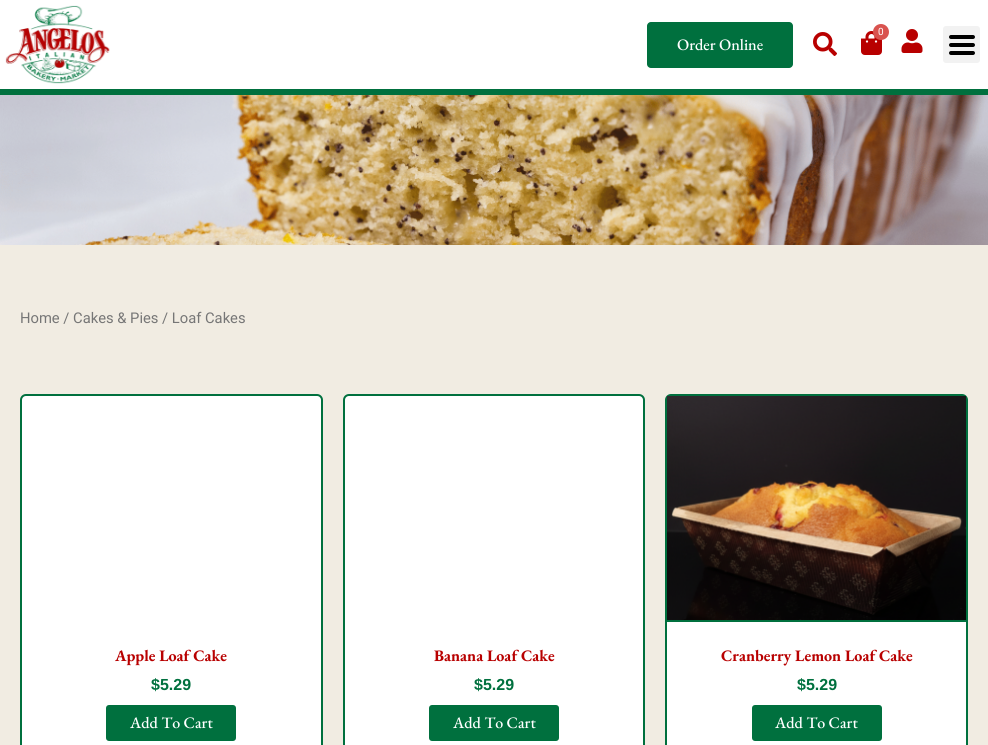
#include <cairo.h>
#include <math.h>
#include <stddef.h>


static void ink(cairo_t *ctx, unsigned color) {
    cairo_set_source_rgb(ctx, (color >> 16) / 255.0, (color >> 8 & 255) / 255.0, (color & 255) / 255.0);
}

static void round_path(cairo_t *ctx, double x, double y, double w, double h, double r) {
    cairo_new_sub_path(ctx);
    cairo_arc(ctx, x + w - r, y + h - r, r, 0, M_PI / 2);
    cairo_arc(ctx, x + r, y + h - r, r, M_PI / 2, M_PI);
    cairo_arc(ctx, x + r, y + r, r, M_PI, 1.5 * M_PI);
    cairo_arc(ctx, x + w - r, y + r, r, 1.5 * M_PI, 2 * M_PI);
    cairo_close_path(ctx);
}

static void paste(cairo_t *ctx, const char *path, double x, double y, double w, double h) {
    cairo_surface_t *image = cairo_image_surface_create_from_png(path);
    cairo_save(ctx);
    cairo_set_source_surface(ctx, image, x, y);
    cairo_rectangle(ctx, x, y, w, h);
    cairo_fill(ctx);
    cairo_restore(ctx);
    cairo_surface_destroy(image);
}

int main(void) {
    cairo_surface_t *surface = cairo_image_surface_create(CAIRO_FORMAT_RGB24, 988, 745);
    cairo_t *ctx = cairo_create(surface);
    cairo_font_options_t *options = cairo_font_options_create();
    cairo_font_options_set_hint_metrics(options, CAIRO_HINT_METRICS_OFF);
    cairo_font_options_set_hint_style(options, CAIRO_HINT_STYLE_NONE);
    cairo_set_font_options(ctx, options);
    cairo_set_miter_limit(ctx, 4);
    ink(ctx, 0xFFFFFF);
    cairo_paint(ctx);
    ink(ctx, 0x00703E);
    cairo_rectangle(ctx, 0, 89, 988, 6);
    cairo_fill(ctx);
    paste(ctx, "media/1.png", 5, 5, 105, 79);
    round_path(ctx, 647, 22, 146, 46, 4);
    cairo_fill(ctx);
    cairo_select_font_face(ctx, "EB Garamond Medium", CAIRO_FONT_SLANT_NORMAL, CAIRO_FONT_WEIGHT_NORMAL);
    cairo_set_font_size(ctx, 16);
    ink(ctx, 0xFFFFFF);
    cairo_move_to(ctx, 677, 50);
    cairo_show_text(ctx, "Order Online");
    paste(ctx, "media/2.png", 813, 32, 24, 24);
    paste(ctx, "media/3.png", 861, 31, 21, 24);
    ink(ctx, 0xD9534F);
    cairo_arc(ctx, 881, 32, 8, 0, 2 * M_PI);
    cairo_fill(ctx);
    cairo_select_font_face(ctx, "Roboto", CAIRO_FONT_SLANT_NORMAL, CAIRO_FONT_WEIGHT_NORMAL);
    cairo_set_font_size(ctx, 10);
    ink(ctx, 0xFFFFFF);
    cairo_move_to(ctx, 878, 35);
    cairo_show_text(ctx, "0");
    paste(ctx, "media/4.png", 901, 29, 22, 24);
    ink(ctx, 0xF2F2F2);
    round_path(ctx, 943, 26, 37, 37, 3);
    cairo_fill(ctx);
    ink(ctx, 0x000000);
    round_path(ctx, 949, 43, 26, 4, 2);
    cairo_fill(ctx);
    round_path(ctx, 949, 35, 26, 4, 2);
    cairo_fill(ctx);
    round_path(ctx, 949, 51, 26, 4, 2);
    cairo_fill(ctx);
    paste(ctx, "media/5.png", 0, 95, 988, 150);
    ink(ctx, 0xF1ECE2);
    cairo_rectangle(ctx, 0, 245, 988, 500);
    cairo_fill(ctx);
    cairo_set_font_size(ctx, 14.75);
    ink(ctx, 0x767676);
    cairo_move_to(ctx, 20, 323);
    cairo_show_text(ctx, "Home / Cakes & Pies / Loaf Cakes");
    ink(ctx, 0xFFFFFF);
    round_path(ctx, 21, 395, 301, 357, 5);
    cairo_fill_preserve(ctx);
    ink(ctx, 0x00703E);
    cairo_stroke(ctx);
    cairo_select_font_face(ctx, "EB Garamond", CAIRO_FONT_SLANT_NORMAL, CAIRO_FONT_WEIGHT_BOLD);
    cairo_set_font_size(ctx, 16);
    ink(ctx, 0xB80000);
    cairo_move_to(ctx, 115, 661);
    cairo_show_text(ctx, "Apple Loaf Cake");
    cairo_select_font_face(ctx, "Liberation Sans", CAIRO_FONT_SLANT_NORMAL, CAIRO_FONT_WEIGHT_BOLD);
    ink(ctx, 0x00703E);
    cairo_move_to(ctx, 151, 690);
    cairo_show_text(ctx, "$5.29");
    round_path(ctx, 106, 705, 130, 36, 3);
    cairo_fill(ctx);
    cairo_select_font_face(ctx, "EB Garamond Medium", CAIRO_FONT_SLANT_NORMAL, CAIRO_FONT_WEIGHT_NORMAL);
    ink(ctx, 0xFFFFFF);
    cairo_move_to(ctx, 130, 728);
    cairo_show_text(ctx, "Add To Cart");
    round_path(ctx, 344, 395, 300, 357, 5);
    cairo_fill_preserve(ctx);
    ink(ctx, 0x00703E);
    cairo_stroke(ctx);
    cairo_select_font_face(ctx, "EB Garamond", CAIRO_FONT_SLANT_NORMAL, CAIRO_FONT_WEIGHT_BOLD);
    ink(ctx, 0xB80000);
    cairo_move_to(ctx, 434, 661);
    cairo_show_text(ctx, "Banana Loaf Cake");
    cairo_select_font_face(ctx, "Liberation Sans", CAIRO_FONT_SLANT_NORMAL, CAIRO_FONT_WEIGHT_BOLD);
    ink(ctx, 0x00703E);
    cairo_move_to(ctx, 474, 690);
    cairo_show_text(ctx, "$5.29");
    round_path(ctx, 429, 705, 130, 36, 3);
    cairo_fill(ctx);
    cairo_select_font_face(ctx, "EB Garamond Medium", CAIRO_FONT_SLANT_NORMAL, CAIRO_FONT_WEIGHT_NORMAL);
    ink(ctx, 0xFFFFFF);
    cairo_move_to(ctx, 453, 728);
    cairo_show_text(ctx, "Add To Cart");
    round_path(ctx, 666, 395, 301, 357, 5);
    cairo_fill_preserve(ctx);
    ink(ctx, 0x00703E);
    cairo_stroke(ctx);
    cairo_rectangle(ctx, 667, 620, 299, 2);
    cairo_fill(ctx);
    paste(ctx, "media/6.png", 667, 396, 299, 224);
    cairo_select_font_face(ctx, "EB Garamond", CAIRO_FONT_SLANT_NORMAL, CAIRO_FONT_WEIGHT_BOLD);
    ink(ctx, 0xB80000);
    cairo_move_to(ctx, 721, 661);
    cairo_show_text(ctx, "Cranberry Lemon Loaf Cake");
    cairo_select_font_face(ctx, "Liberation Sans", CAIRO_FONT_SLANT_NORMAL, CAIRO_FONT_WEIGHT_BOLD);
    ink(ctx, 0x00703E);
    cairo_move_to(ctx, 797, 690);
    cairo_show_text(ctx, "$5.29");
    round_path(ctx, 752, 705, 130, 36, 3);
    cairo_fill(ctx);
    cairo_select_font_face(ctx, "EB Garamond Medium", CAIRO_FONT_SLANT_NORMAL, CAIRO_FONT_WEIGHT_NORMAL);
    ink(ctx, 0xFFFFFF);
    cairo_move_to(ctx, 775, 728);
    cairo_show_text(ctx, "Add To Cart");
    cairo_surface_write_to_png(surface, "image.png");
    cairo_font_options_destroy(options);
    cairo_destroy(ctx);
    cairo_surface_destroy(surface);
    return 0;
}
